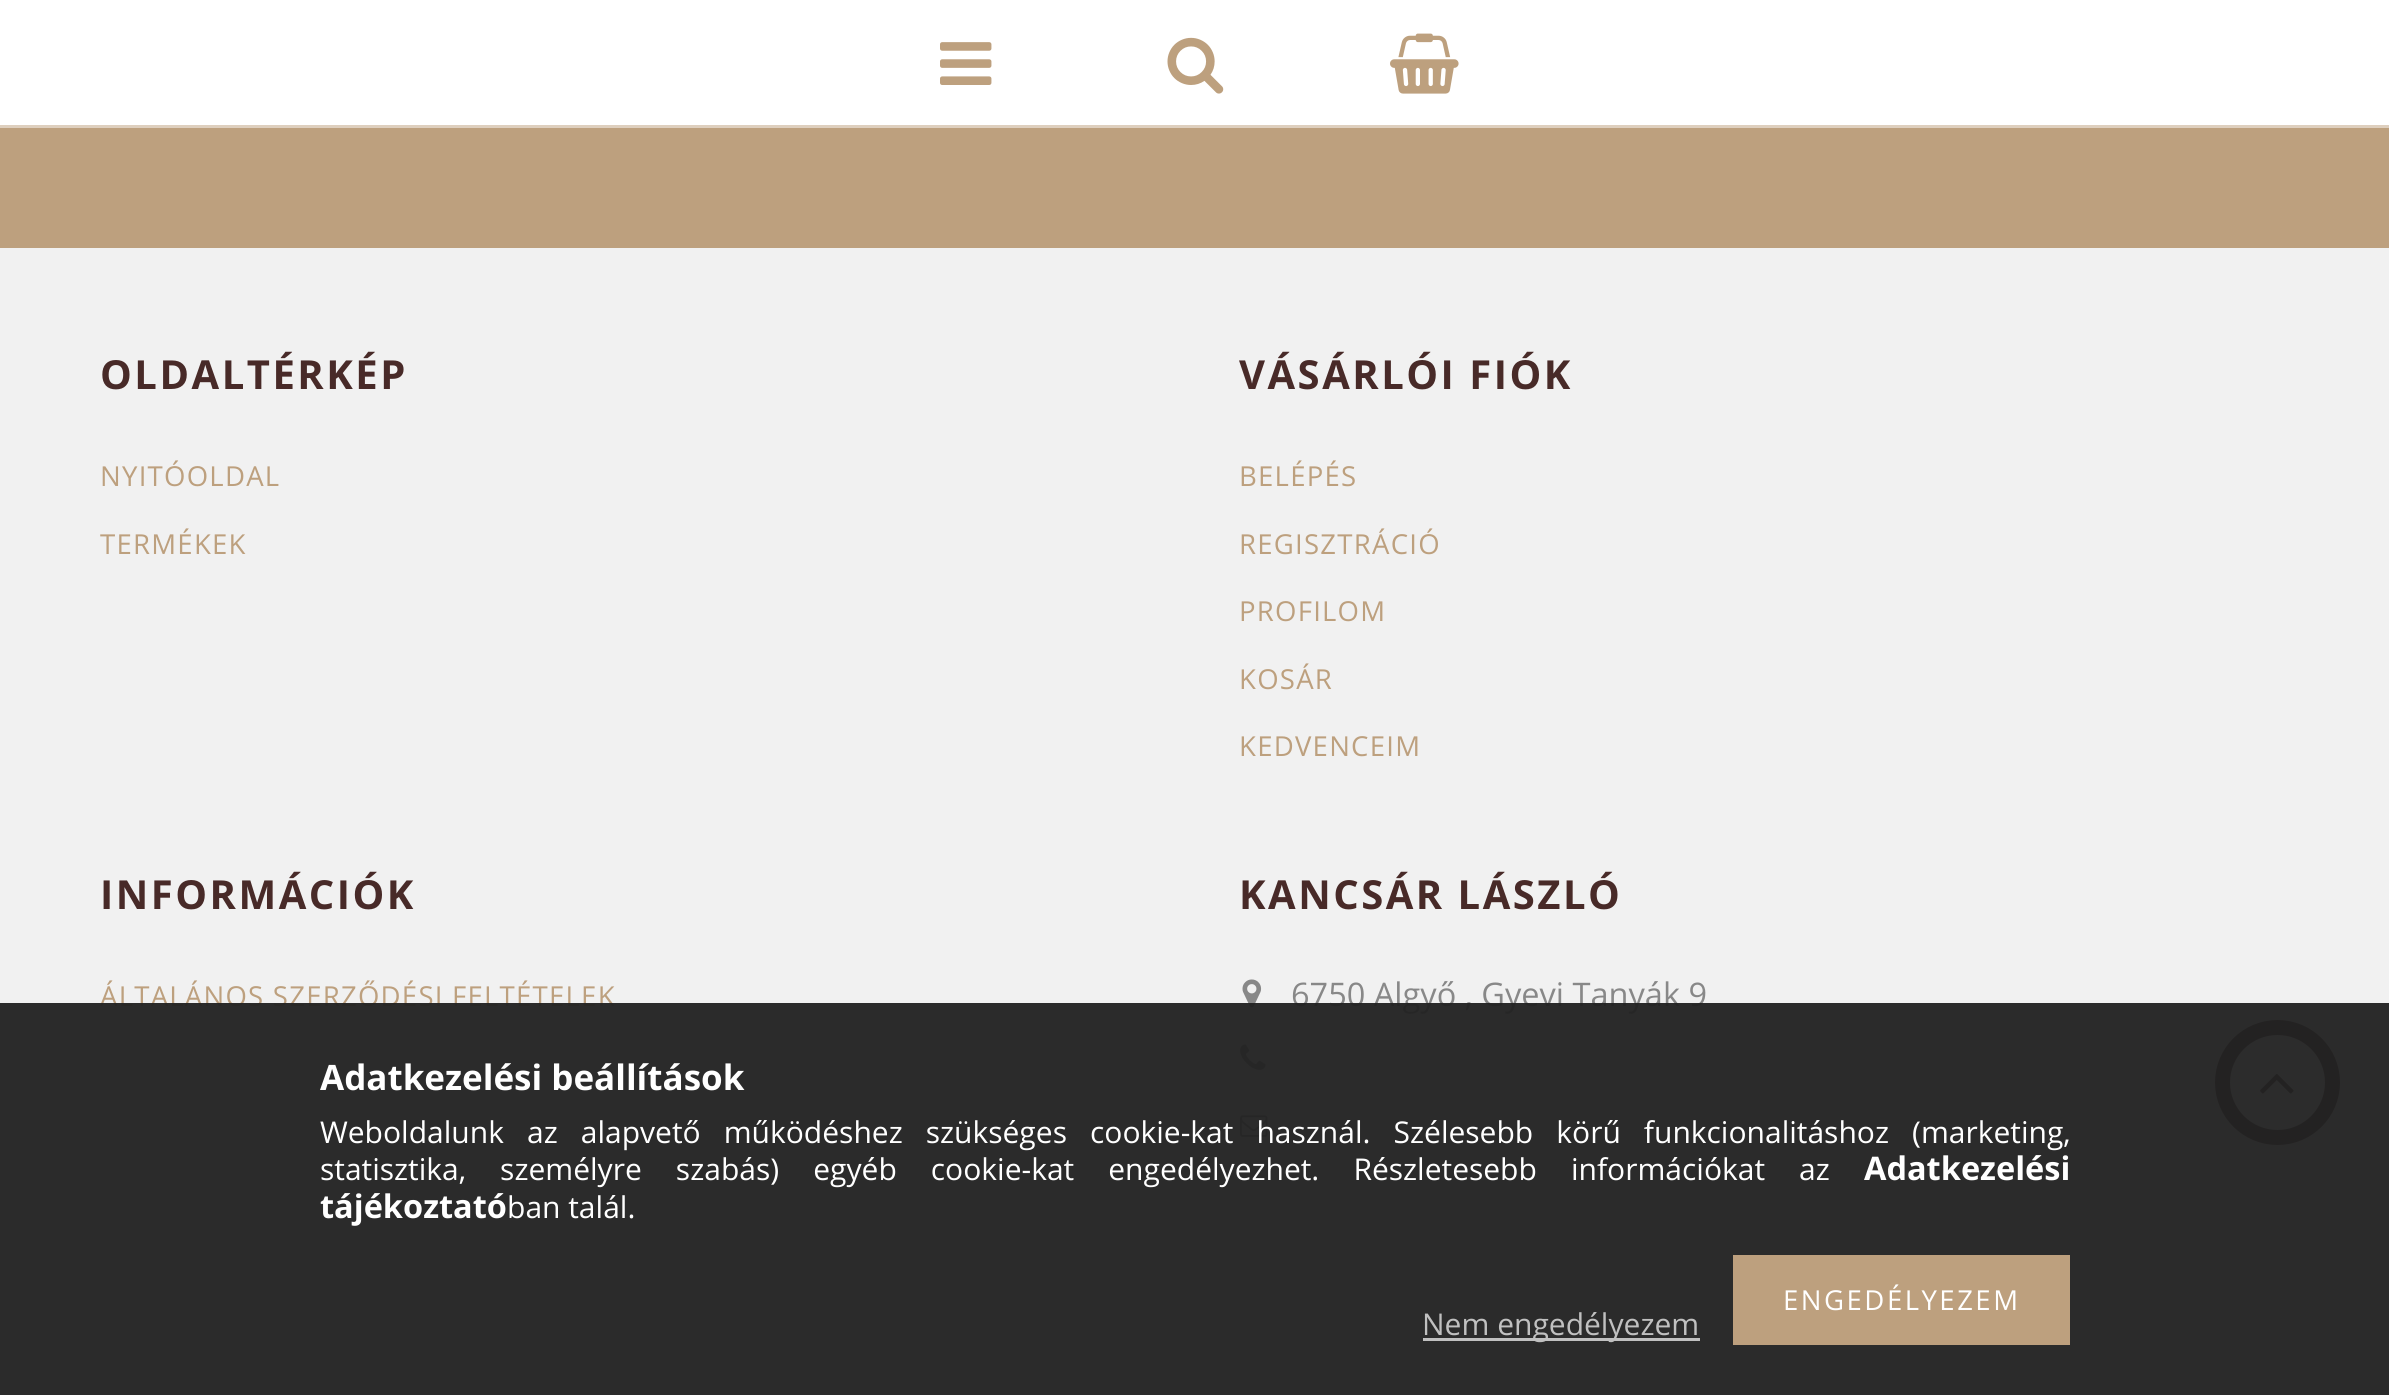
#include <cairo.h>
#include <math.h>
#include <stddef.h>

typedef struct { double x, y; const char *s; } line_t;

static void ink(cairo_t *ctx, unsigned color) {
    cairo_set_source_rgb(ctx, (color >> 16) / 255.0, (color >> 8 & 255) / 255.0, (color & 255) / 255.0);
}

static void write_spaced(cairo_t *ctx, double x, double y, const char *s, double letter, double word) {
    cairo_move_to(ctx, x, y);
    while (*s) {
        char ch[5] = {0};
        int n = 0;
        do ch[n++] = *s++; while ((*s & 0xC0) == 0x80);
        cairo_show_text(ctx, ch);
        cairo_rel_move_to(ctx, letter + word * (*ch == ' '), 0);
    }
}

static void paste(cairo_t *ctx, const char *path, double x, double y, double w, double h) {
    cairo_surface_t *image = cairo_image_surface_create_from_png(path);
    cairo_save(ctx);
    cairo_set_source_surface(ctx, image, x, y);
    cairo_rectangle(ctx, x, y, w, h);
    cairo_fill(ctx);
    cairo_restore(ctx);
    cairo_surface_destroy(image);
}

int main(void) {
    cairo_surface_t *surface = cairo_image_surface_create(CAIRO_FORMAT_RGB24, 2389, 1395);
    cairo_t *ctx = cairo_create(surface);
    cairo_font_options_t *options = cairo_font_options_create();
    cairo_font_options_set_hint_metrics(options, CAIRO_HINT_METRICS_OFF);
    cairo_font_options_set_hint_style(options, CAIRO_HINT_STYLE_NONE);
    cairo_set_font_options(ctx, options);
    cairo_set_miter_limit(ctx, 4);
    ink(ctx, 0xBDA07E);
    cairo_paint(ctx);
    ink(ctx, 0xFFFFFF);
    cairo_rectangle(ctx, 0, 0, 2389, 125);
    cairo_fill(ctx);
    ink(ctx, 0xDECFBE);
    cairo_rectangle(ctx, 0, 125, 2389, 3);
    cairo_fill(ctx);
    paste(ctx, "media/1.png", 940, 42, 52, 43);
    paste(ctx, "media/2.png", 1167, 37, 57, 57);
    paste(ctx, "media/3.png", 1390, 33, 69, 61);
    ink(ctx, 0xF1F1F1);
    cairo_rectangle(ctx, 0, 248, 2389, 1147);
    cairo_fill(ctx);
    cairo_select_font_face(ctx, "Open Sans", CAIRO_FONT_SLANT_NORMAL, CAIRO_FONT_WEIGHT_BOLD);
    cairo_set_font_size(ctx, 40);
    ink(ctx, 0x482A28);
    write_spaced(ctx, 100, 389, "OLDALTÉRKÉP", 2.5, 0);
    cairo_select_font_face(ctx, "Open Sans", CAIRO_FONT_SLANT_NORMAL, CAIRO_FONT_WEIGHT_NORMAL);
    cairo_set_font_size(ctx, 27.5);
    ink(ctx, 0xBDA07E);
    write_spaced(ctx, 100, 486, "NYITÓOLDAL", 1.25, 0);
    write_spaced(ctx, 100, 554, "TERMÉKEK", 1.25, 0);
    cairo_select_font_face(ctx, "Open Sans", CAIRO_FONT_SLANT_NORMAL, CAIRO_FONT_WEIGHT_BOLD);
    cairo_set_font_size(ctx, 40);
    ink(ctx, 0x482A28);
    write_spaced(ctx, 1239, 389, "VÁSÁRLÓI FIÓK", 2.5, 0);
    cairo_select_font_face(ctx, "Open Sans", CAIRO_FONT_SLANT_NORMAL, CAIRO_FONT_WEIGHT_NORMAL);
    cairo_set_font_size(ctx, 27.5);
    ink(ctx, 0xBDA07E);
    {
        static const line_t items[] = {
            {1239, 486, "BELÉPÉS"},
            {1239, 554, "REGISZTRÁCIÓ"},
            {1239, 621, "PROFILOM"},
            {1239, 689, "KOSÁR"},
            {1239, 756, "KEDVENCEIM"},
        };
        for (size_t i = 0; i < sizeof items / sizeof *items; i++) {
            write_spaced(ctx, items[i].x, items[i].y, items[i].s, 1.25, 0);
        }
    }
    cairo_select_font_face(ctx, "Open Sans", CAIRO_FONT_SLANT_NORMAL, CAIRO_FONT_WEIGHT_BOLD);
    cairo_set_font_size(ctx, 40);
    ink(ctx, 0x482A28);
    write_spaced(ctx, 100, 909, "INFORMÁCIÓK", 2.5, 0);
    cairo_select_font_face(ctx, "Open Sans", CAIRO_FONT_SLANT_NORMAL, CAIRO_FONT_WEIGHT_NORMAL);
    cairo_set_font_size(ctx, 27.5);
    ink(ctx, 0xBDA07E);
    write_spaced(ctx, 100, 1006, "ÁLTALÁNOS SZERZŐDÉSI FELTÉTELEK", 1.25, 0);
    cairo_select_font_face(ctx, "Open Sans", CAIRO_FONT_SLANT_NORMAL, CAIRO_FONT_WEIGHT_BOLD);
    cairo_set_font_size(ctx, 40);
    ink(ctx, 0x482A28);
    write_spaced(ctx, 1239, 909, "KANCSÁR LÁSZLÓ", 2.5, 0);
    paste(ctx, "media/4.png", 1242, 979, 20, 29);
    cairo_select_font_face(ctx, "Open Sans", CAIRO_FONT_SLANT_NORMAL, CAIRO_FONT_WEIGHT_NORMAL);
    cairo_set_font_size(ctx, 32.5);
    ink(ctx, 0x888888);
    cairo_move_to(ctx, 1291, 1006);
    cairo_show_text(ctx, "6750 Algyő , Gyevi Tanyák 9");
    paste(ctx, "media/5.png", 1240, 1044, 26, 26);
    paste(ctx, "media/6.png", 1240, 1115, 28, 22);
    ink(ctx, 0xFCFCFC);
    cairo_arc(ctx, 2277.5, 1082.5, 55, 0, 2 * M_PI);
    cairo_fill_preserve(ctx);
    ink(ctx, 0x482A28);
    cairo_set_line_width(ctx, 15);
    cairo_stroke(ctx);
    paste(ctx, "media/7.png", 2260, 1074, 34, 20);
    cairo_set_source_rgba(ctx, 0.133, 0.133, 0.133, 0.95);
    cairo_rectangle(ctx, 0, 1003, 2389, 392);
    cairo_fill(ctx);
    cairo_select_font_face(ctx, "Open Sans", CAIRO_FONT_SLANT_NORMAL, CAIRO_FONT_WEIGHT_BOLD);
    cairo_set_font_size(ctx, 35);
    ink(ctx, 0xFFFFFF);
    cairo_move_to(ctx, 320, 1090);
    cairo_show_text(ctx, "Adatkezelési beállítások");
    cairo_select_font_face(ctx, "Open Sans", CAIRO_FONT_SLANT_NORMAL, CAIRO_FONT_WEIGHT_NORMAL);
    cairo_set_font_size(ctx, 30);
    write_spaced(ctx, 320, 1143, "Weboldalunk az alapvető működéshez szükséges cookie-kat használ. Szélesebb körű funkcionalitáshoz (marketing,", 0, 15.25);
    write_spaced(ctx, 320, 1180, "statisztika, személyre szabás) egyéb cookie-kat engedélyezhet. Részletesebb információkat az", 0, 26.25);
    cairo_select_font_face(ctx, "Open Sans", CAIRO_FONT_SLANT_NORMAL, CAIRO_FONT_WEIGHT_BOLD);
    cairo_set_font_size(ctx, 32.5);
    cairo_move_to(ctx, 1864, 1180);
    cairo_show_text(ctx, "Adatkezelési");
    cairo_move_to(ctx, 320, 1218);
    cairo_show_text(ctx, "tájékoztató");
    cairo_select_font_face(ctx, "Open Sans", CAIRO_FONT_SLANT_NORMAL, CAIRO_FONT_WEIGHT_NORMAL);
    cairo_set_font_size(ctx, 30);
    cairo_move_to(ctx, 507, 1218);
    cairo_show_text(ctx, "ban talál.");
    ink(ctx, 0xBDA07E);
    cairo_rectangle(ctx, 1733, 1255, 337, 90);
    cairo_fill(ctx);
    cairo_set_font_size(ctx, 27.5);
    ink(ctx, 0xFFFFFF);
    write_spaced(ctx, 1783, 1310, "ENGEDÉLYEZEM", 2.5, 0);
    ink(ctx, 0xC0C0C0);
    cairo_rectangle(ctx, 1423, 1338, 277, 3);
    cairo_fill(ctx);
    cairo_set_font_size(ctx, 30);
    cairo_move_to(ctx, 1422, 1335);
    cairo_show_text(ctx, "Nem engedélyezem");
    cairo_surface_write_to_png(surface, "image.png");
    cairo_font_options_destroy(options);
    cairo_destroy(ctx);
    cairo_surface_destroy(surface);
    return 0;
}
